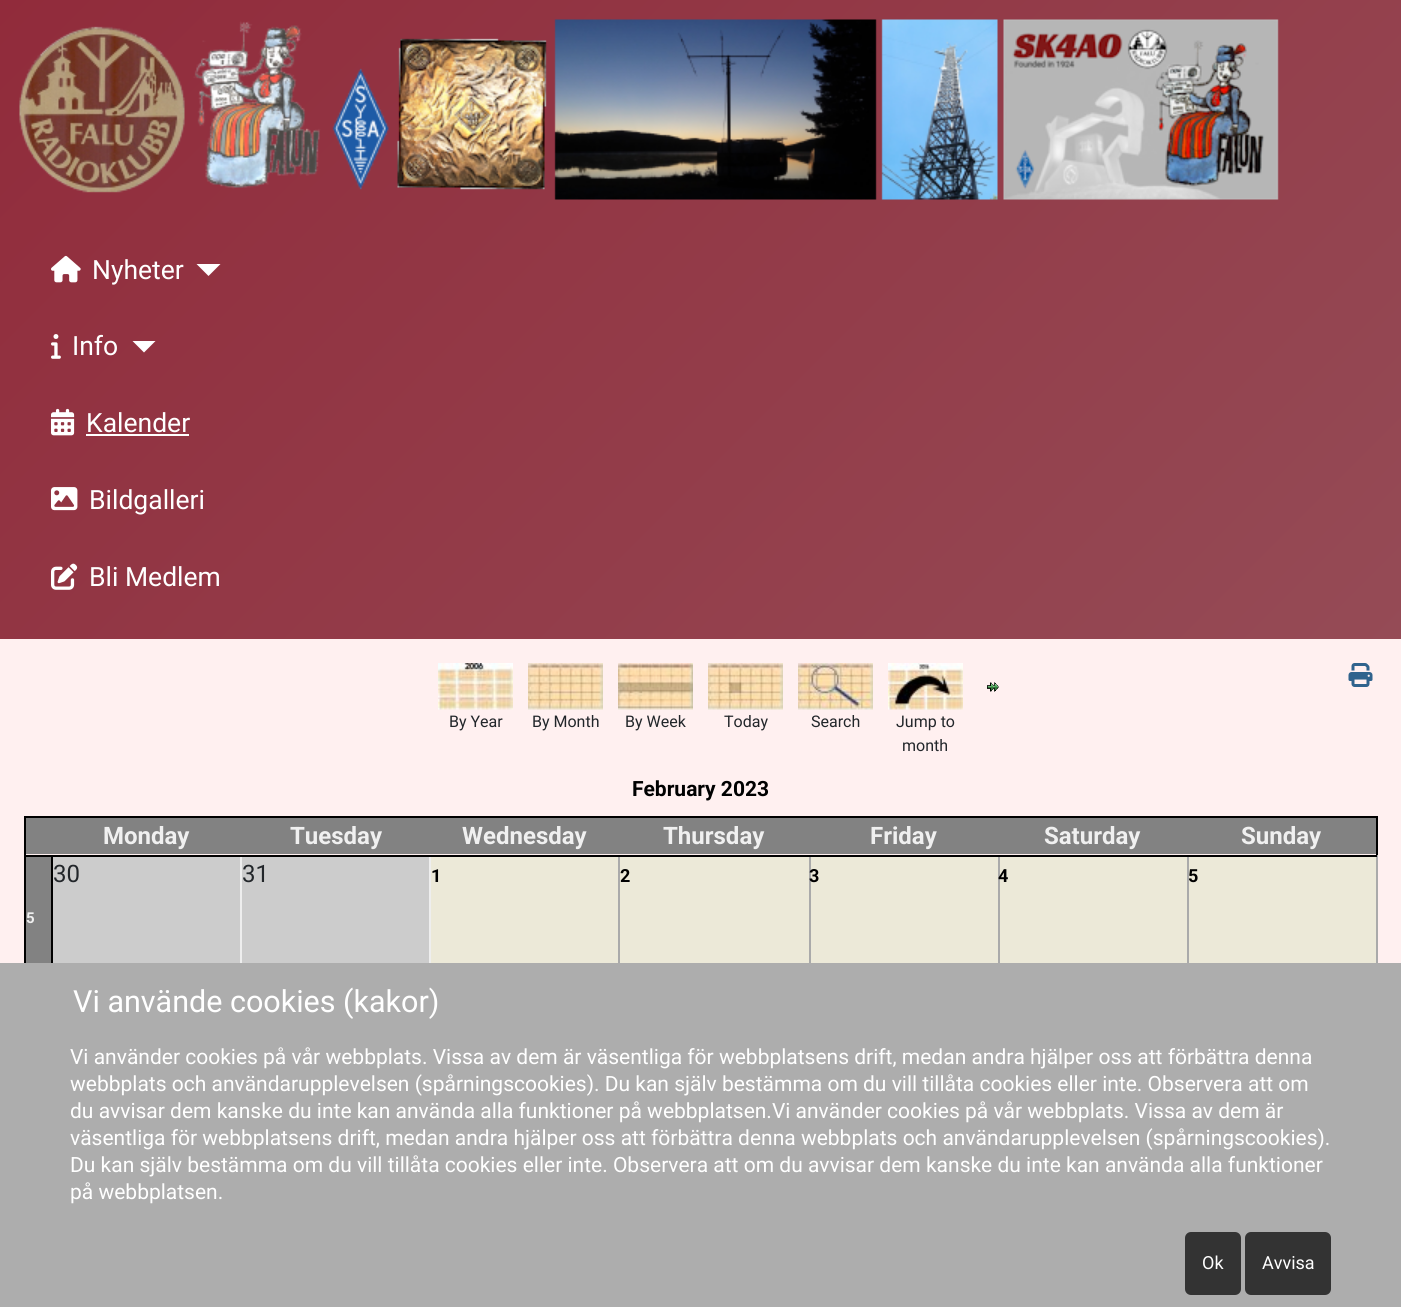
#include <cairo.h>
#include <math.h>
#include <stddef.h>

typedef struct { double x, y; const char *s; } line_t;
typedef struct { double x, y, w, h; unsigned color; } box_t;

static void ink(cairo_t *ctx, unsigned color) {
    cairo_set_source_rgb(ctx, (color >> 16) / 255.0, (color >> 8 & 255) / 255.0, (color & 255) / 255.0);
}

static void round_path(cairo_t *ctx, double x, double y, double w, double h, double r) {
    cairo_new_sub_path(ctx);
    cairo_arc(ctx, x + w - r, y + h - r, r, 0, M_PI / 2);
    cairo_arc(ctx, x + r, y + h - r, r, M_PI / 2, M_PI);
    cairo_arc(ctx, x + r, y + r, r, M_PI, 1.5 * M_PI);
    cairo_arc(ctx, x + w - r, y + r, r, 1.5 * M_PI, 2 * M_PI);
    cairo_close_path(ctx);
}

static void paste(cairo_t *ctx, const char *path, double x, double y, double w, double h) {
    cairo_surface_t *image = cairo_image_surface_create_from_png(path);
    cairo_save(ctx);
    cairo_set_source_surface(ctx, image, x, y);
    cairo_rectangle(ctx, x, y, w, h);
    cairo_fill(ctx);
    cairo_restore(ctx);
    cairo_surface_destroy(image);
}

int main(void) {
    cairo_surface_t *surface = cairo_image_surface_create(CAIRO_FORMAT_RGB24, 1401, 1307);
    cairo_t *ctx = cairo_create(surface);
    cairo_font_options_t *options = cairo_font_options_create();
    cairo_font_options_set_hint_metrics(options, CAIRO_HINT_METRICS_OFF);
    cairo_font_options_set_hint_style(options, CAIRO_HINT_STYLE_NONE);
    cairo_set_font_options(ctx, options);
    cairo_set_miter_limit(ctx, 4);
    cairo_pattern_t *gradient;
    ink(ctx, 0xFFF0F0);
    cairo_paint(ctx);
    gradient = cairo_pattern_create_linear(190, -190, 1211, 830);
    cairo_pattern_add_color_stop_rgba(gradient, 0, 0.569, 0.169, 0.231, 1);
    cairo_pattern_add_color_stop_rgba(gradient, 1, 0.584, 0.294, 0.337, 1);
    cairo_set_source(ctx, gradient);
    cairo_pattern_destroy(gradient);
    cairo_rectangle(ctx, 0, 0, 1401, 639);
    cairo_fill(ctx);
    paste(ctx, "media/1.png", 19, 19, 1260, 181);
    paste(ctx, "media/2.png", 51, 255, 30, 28);
    cairo_select_font_face(ctx, "Roboto", CAIRO_FONT_SLANT_NORMAL, CAIRO_FONT_WEIGHT_NORMAL);
    cairo_set_font_size(ctx, 26.5);
    ink(ctx, 0xFFFFFF);
    cairo_move_to(ctx, 92, 279);
    cairo_show_text(ctx, "Nyheter");
    cairo_new_path(ctx);
    cairo_move_to(ctx, 196.5, 264);
    cairo_line_to(ctx, 220.5, 264);
    cairo_line_to(ctx, 208.5, 276);
    cairo_close_path(ctx);
    cairo_fill(ctx);
    paste(ctx, "media/3.png", 51, 334, 10, 25);
    cairo_move_to(ctx, 72, 355);
    cairo_show_text(ctx, "Info");
    cairo_save(ctx);
    cairo_rectangle(ctx, 119, 341, 37, 12);
    cairo_clip(ctx);
    cairo_new_path(ctx);
    cairo_move_to(ctx, 132, 340.5);
    cairo_line_to(ctx, 156, 340.5);
    cairo_line_to(ctx, 144, 352.5);
    cairo_close_path(ctx);
    cairo_fill(ctx);
    cairo_restore(ctx);
    paste(ctx, "media/4.png", 51, 408, 24, 28);
    cairo_move_to(ctx, 86, 432);
    cairo_show_text(ctx, "Kalender");
    cairo_rectangle(ctx, 86, 434, 103, 2);
    cairo_fill(ctx);
    paste(ctx, "media/5.png", 51, 487, 27, 24);
    cairo_move_to(ctx, 89, 509);
    cairo_show_text(ctx, "Bildgalleri");
    paste(ctx, "media/6.png", 51, 563, 27, 27);
    cairo_move_to(ctx, 89, 586);
    cairo_show_text(ctx, "Bli Medlem");
    paste(ctx, "media/7.png", 1348, 663, 25, 24);
    paste(ctx, "media/8.png", 438, 663, 75, 47);
    paste(ctx, "media/9.png", 528, 663, 75, 47);
    paste(ctx, "media/10.png", 618, 663, 75, 47);
    paste(ctx, "media/11.png", 708, 663, 75, 47);
    paste(ctx, "media/12.png", 798, 663, 75, 47);
    paste(ctx, "media/13.png", 888, 663, 75, 47);
    paste(ctx, "media/14.png", 987, 682, 12, 10);
    cairo_set_font_size(ctx, 16);
    ink(ctx, 0x22262A);
    {
        static const line_t items[] = {
            {449, 727, "By Year"},
            {532, 727, "By Month"},
            {625, 727, "By Week"},
            {724, 727, "Today"},
            {811, 727, "Search"},
            {896, 727, "Jump to"},
            {902, 751, "month"},
        };
        for (size_t i = 0; i < sizeof items / sizeof *items; i++) {
            cairo_move_to(ctx, items[i].x, items[i].y);
            cairo_show_text(ctx, items[i].s);
        }
    }
    cairo_select_font_face(ctx, "Roboto", CAIRO_FONT_SLANT_NORMAL, CAIRO_FONT_WEIGHT_BOLD);
    cairo_set_font_size(ctx, 21);
    ink(ctx, 0x000000);
    cairo_move_to(ctx, 632, 796);
    cairo_show_text(ctx, "February 2023");
    {
        static const box_t items[] = {
            {24, 816, 1353, 2, 0x000000},
            {1376, 816, 2, 39, 0x000000},
            {24, 816, 2, 147, 0x000000},
            {26, 818, 1350, 36, 0x828282},
        };
        for (size_t i = 0; i < sizeof items / sizeof *items; i++) {
            ink(ctx, items[i].color);
            cairo_rectangle(ctx, items[i].x, items[i].y, items[i].w, items[i].h);
            cairo_fill(ctx);
        }
    }
    cairo_set_font_size(ctx, 24);
    ink(ctx, 0xF0F0F0);
    {
        static const line_t items[] = {
            {103, 844, "Monday"},
            {290, 844, "Tuesday"},
            {462, 844, "Wednesday"},
            {663, 844, "Thursday"},
            {870, 844, "Friday"},
            {1044, 844, "Saturday"},
        };
        for (size_t i = 0; i < sizeof items / sizeof *items; i++) {
            cairo_move_to(ctx, items[i].x, items[i].y);
            cairo_show_text(ctx, items[i].s);
        }
    }
    {
        static const box_t items[] = {
            {429, 855, 2, 108, 0xEEEEEE},
            {240, 855, 2, 108, 0xEEEEEE},
            {618, 855, 2, 108, 0xAAAAAA},
            {809, 855, 2, 108, 0xAAAAAA},
            {998, 855, 2, 108, 0xAAAAAA},
            {1376, 855, 2, 108, 0xAAAAAA},
            {1187, 855, 2, 108, 0xAAAAAA},
            {24, 855, 29, 2, 0x000000},
            {51, 855, 2, 108, 0x000000},
            {51, 855, 1326, 2, 0x000000},
        };
        for (size_t i = 0; i < sizeof items / sizeof *items; i++) {
            ink(ctx, items[i].color);
            cairo_rectangle(ctx, items[i].x, items[i].y, items[i].w, items[i].h);
            cairo_fill(ctx);
        }
    }
    ink(ctx, 0xF0F0F0);
    cairo_move_to(ctx, 1241, 844);
    cairo_show_text(ctx, "Sunday");
    ink(ctx, 0xCCCCCC);
    cairo_rectangle(ctx, 53, 857, 187, 106);
    cairo_fill(ctx);
    cairo_select_font_face(ctx, "Roboto", CAIRO_FONT_SLANT_NORMAL, CAIRO_FONT_WEIGHT_NORMAL);
    ink(ctx, 0x22262A);
    cairo_move_to(ctx, 53, 882);
    cairo_show_text(ctx, "30");
    ink(ctx, 0xCCCCCC);
    cairo_rectangle(ctx, 242, 857, 187, 106);
    cairo_fill(ctx);
    ink(ctx, 0x22262A);
    cairo_move_to(ctx, 242, 882);
    cairo_show_text(ctx, "31");
    ink(ctx, 0xECE9D8);
    cairo_rectangle(ctx, 431, 857, 187, 106);
    cairo_fill(ctx);
    cairo_select_font_face(ctx, "Roboto", CAIRO_FONT_SLANT_NORMAL, CAIRO_FONT_WEIGHT_BOLD);
    cairo_set_font_size(ctx, 18);
    ink(ctx, 0x000000);
    cairo_move_to(ctx, 431, 882);
    cairo_show_text(ctx, "1");
    ink(ctx, 0xECE9D8);
    cairo_rectangle(ctx, 620, 857, 189, 106);
    cairo_fill(ctx);
    ink(ctx, 0x000000);
    cairo_move_to(ctx, 620, 882);
    cairo_show_text(ctx, "2");
    ink(ctx, 0xECE9D8);
    cairo_rectangle(ctx, 811, 857, 187, 106);
    cairo_fill(ctx);
    ink(ctx, 0x000000);
    cairo_move_to(ctx, 809, 882);
    cairo_show_text(ctx, "3");
    ink(ctx, 0xECE9D8);
    cairo_rectangle(ctx, 1000, 857, 187, 106);
    cairo_fill(ctx);
    ink(ctx, 0x000000);
    cairo_move_to(ctx, 998, 882);
    cairo_show_text(ctx, "4");
    ink(ctx, 0xECE9D8);
    cairo_rectangle(ctx, 1189, 857, 187, 106);
    cairo_fill(ctx);
    ink(ctx, 0x000000);
    cairo_move_to(ctx, 1188, 882);
    cairo_show_text(ctx, "5");
    ink(ctx, 0x828282);
    cairo_rectangle(ctx, 26, 857, 25, 106);
    cairo_fill(ctx);
    cairo_set_font_size(ctx, 15);
    ink(ctx, 0xF0F0F0);
    cairo_move_to(ctx, 26, 923);
    cairo_show_text(ctx, "5");
    ink(ctx, 0xADADAD);
    cairo_rectangle(ctx, 0, 963, 1401, 344);
    cairo_fill(ctx);
    cairo_select_font_face(ctx, "Roboto", CAIRO_FONT_SLANT_NORMAL, CAIRO_FONT_WEIGHT_NORMAL);
    cairo_set_font_size(ctx, 30.5);
    ink(ctx, 0xFFFFFF);
    cairo_move_to(ctx, 73, 1012);
    cairo_show_text(ctx, "Vi använde cookies (kakor)");
    cairo_set_font_size(ctx, 21);
    {
        static const line_t items[] = {
            {70, 1064, "Vi använder cookies på vår webbplats. Vissa av dem är väsentliga för webbplatsens drift, medan andra hjälper oss att förbättra denna"},
            {70, 1091, "webbplats och användarupplevelsen (spårningscookies). Du kan själv bestämma om du vill tillåta cookies eller inte. Observera att om"},
            {70, 1118, "du avvisar dem kanske du inte kan använda alla funktioner på webbplatsen.Vi använder cookies på vår webbplats. Vissa av dem är"},
            {70, 1145, "väsentliga för webbplatsens drift, medan andra hjälper oss att förbättra denna webbplats och användarupplevelsen (spårningscookies)."},
            {70, 1172, "Du kan själv bestämma om du vill tillåta cookies eller inte. Observera att om du avvisar dem kanske du inte kan använda alla funktioner"},
            {70, 1199, "på webbplatsen."},
        };
        for (size_t i = 0; i < sizeof items / sizeof *items; i++) {
            cairo_move_to(ctx, items[i].x, items[i].y);
            cairo_show_text(ctx, items[i].s);
        }
    }
    ink(ctx, 0x333333);
    round_path(ctx, 1185, 1232, 56, 63, 6);
    cairo_fill(ctx);
    cairo_set_font_size(ctx, 18);
    ink(ctx, 0xFFFFFF);
    cairo_move_to(ctx, 1202, 1269);
    cairo_show_text(ctx, "Ok");
    ink(ctx, 0x333333);
    round_path(ctx, 1245, 1232, 86, 63, 6);
    cairo_fill(ctx);
    ink(ctx, 0xFFFFFF);
    cairo_move_to(ctx, 1262, 1269);
    cairo_show_text(ctx, "Avvisa");
    cairo_surface_write_to_png(surface, "image.png");
    cairo_font_options_destroy(options);
    cairo_destroy(ctx);
    cairo_surface_destroy(surface);
    return 0;
}
